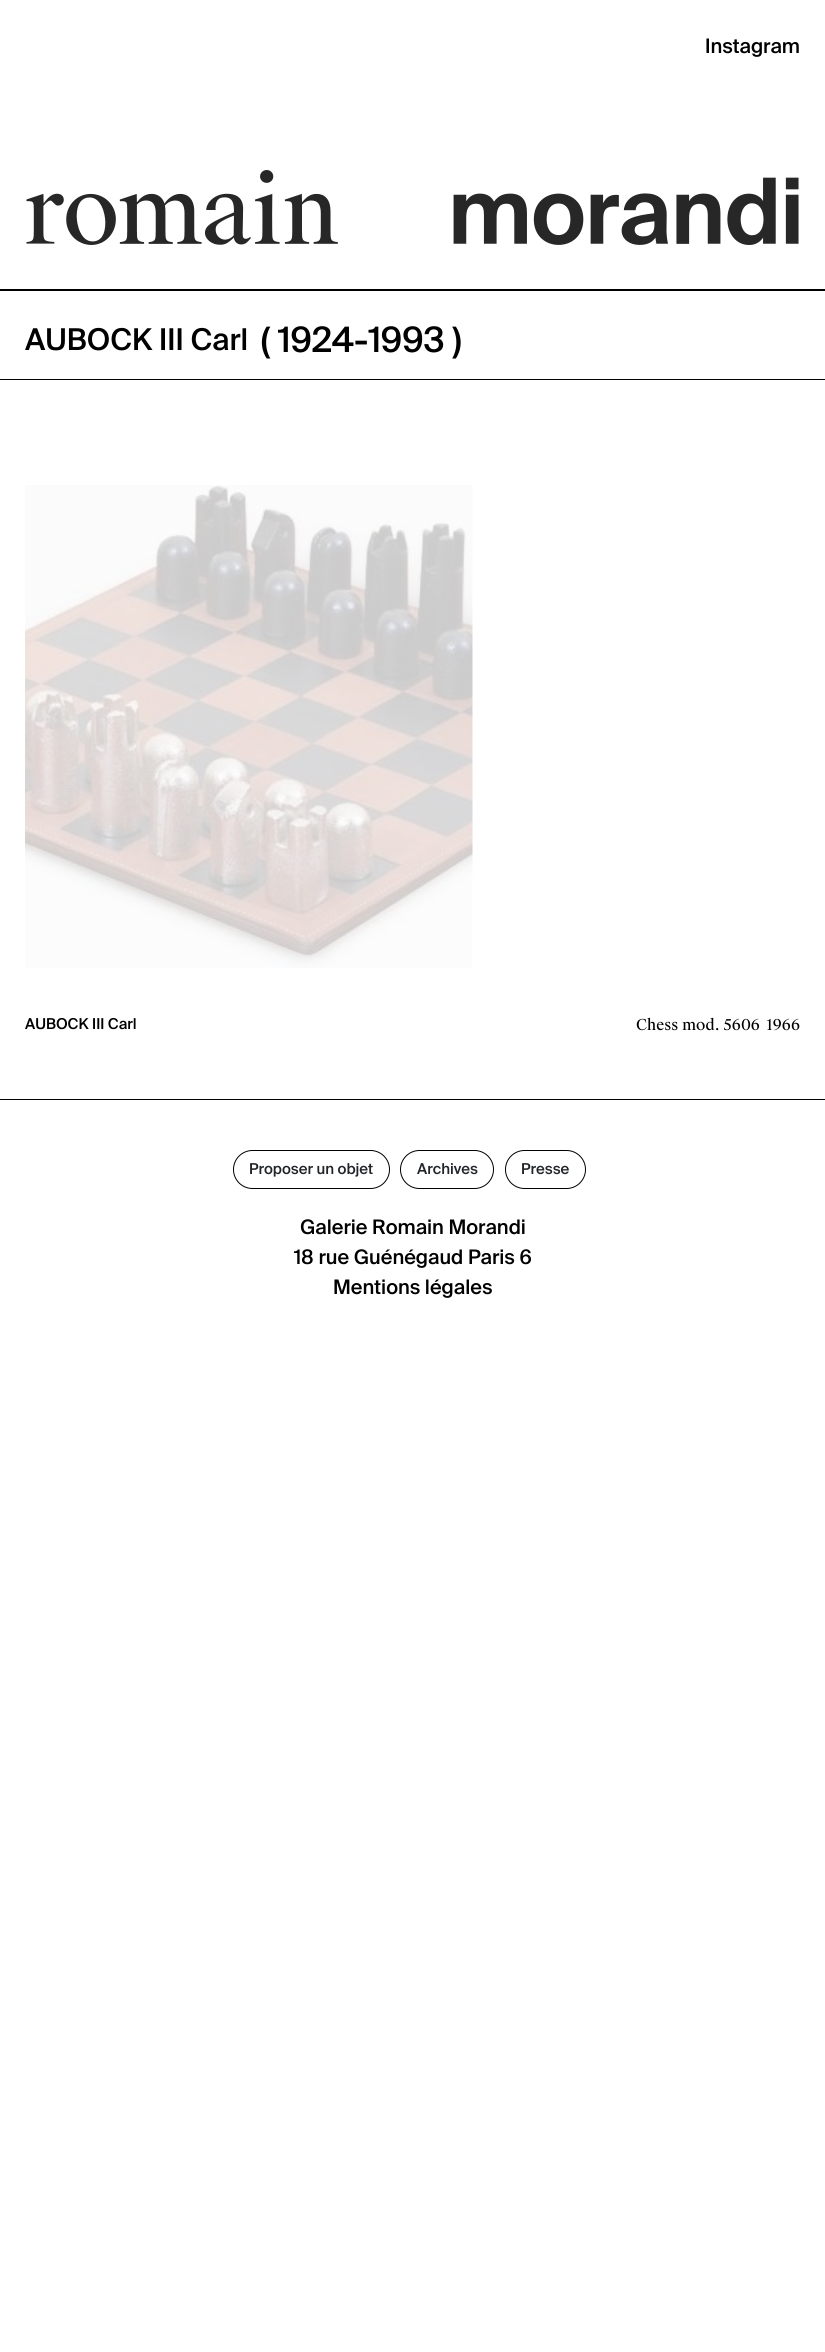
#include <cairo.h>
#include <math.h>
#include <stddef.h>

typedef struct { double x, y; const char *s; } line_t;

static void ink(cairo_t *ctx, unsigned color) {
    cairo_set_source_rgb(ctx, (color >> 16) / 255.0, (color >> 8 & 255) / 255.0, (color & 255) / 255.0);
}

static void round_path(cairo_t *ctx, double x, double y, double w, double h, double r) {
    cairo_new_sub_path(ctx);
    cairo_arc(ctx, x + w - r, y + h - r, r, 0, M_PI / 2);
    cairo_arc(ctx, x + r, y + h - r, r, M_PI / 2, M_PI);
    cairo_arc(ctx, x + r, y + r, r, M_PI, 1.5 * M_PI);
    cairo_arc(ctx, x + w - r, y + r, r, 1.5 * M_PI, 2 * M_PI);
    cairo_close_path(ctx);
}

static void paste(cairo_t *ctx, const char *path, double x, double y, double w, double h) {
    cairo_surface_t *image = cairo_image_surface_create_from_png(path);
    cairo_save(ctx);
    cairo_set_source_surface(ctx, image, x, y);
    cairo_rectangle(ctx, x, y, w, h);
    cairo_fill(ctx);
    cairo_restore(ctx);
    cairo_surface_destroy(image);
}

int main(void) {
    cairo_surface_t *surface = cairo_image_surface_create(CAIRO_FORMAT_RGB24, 825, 2352);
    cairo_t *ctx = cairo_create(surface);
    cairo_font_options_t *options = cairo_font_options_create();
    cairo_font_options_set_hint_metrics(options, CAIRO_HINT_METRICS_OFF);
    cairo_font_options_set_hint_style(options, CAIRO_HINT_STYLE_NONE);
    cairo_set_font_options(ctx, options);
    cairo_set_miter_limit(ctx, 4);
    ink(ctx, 0xFFFFFF);
    cairo_paint(ctx);
    ink(ctx, 0x000000);
    cairo_rectangle(ctx, 0, 289, 825, 2);
    cairo_fill(ctx);
    cairo_select_font_face(ctx, "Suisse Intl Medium", CAIRO_FONT_SLANT_NORMAL, CAIRO_FONT_WEIGHT_NORMAL);
    cairo_set_font_size(ctx, 20);
    cairo_move_to(ctx, 705, 53);
    cairo_show_text(ctx, "Instagram");
    paste(ctx, "media/1.png", 26, 170, 773, 75);
    cairo_rectangle(ctx, 0, 379, 825, 1);
    cairo_fill(ctx);
    cairo_set_font_size(ctx, 30);
    cairo_move_to(ctx, 25, 350);
    cairo_show_text(ctx, "AUBOCK III Carl");
    cairo_set_font_size(ctx, 35);
    cairo_move_to(ctx, 261, 352);
    cairo_show_text(ctx, "( 1924-1993 )");
    paste(ctx, "media/2.png", 25, 485, 448, 483);
    cairo_set_font_size(ctx, 15);
    cairo_move_to(ctx, 25, 1029);
    cairo_show_text(ctx, "AUBOCK III Carl");
    cairo_select_font_face(ctx, "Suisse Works", CAIRO_FONT_SLANT_NORMAL, CAIRO_FONT_WEIGHT_NORMAL);
    cairo_move_to(ctx, 636, 1030);
    cairo_show_text(ctx, "Chess mod. 5606");
    cairo_move_to(ctx, 766, 1030);
    cairo_show_text(ctx, "1966");
    cairo_rectangle(ctx, 0, 1099, 825, 1);
    cairo_fill(ctx);
    round_path(ctx, 233.5, 1150.5, 156, 38, 19);
    cairo_set_line_width(ctx, 1);
    cairo_stroke(ctx);
    cairo_select_font_face(ctx, "Suisse Intl Medium", CAIRO_FONT_SLANT_NORMAL, CAIRO_FONT_WEIGHT_NORMAL);
    ink(ctx, 0x212529);
    cairo_move_to(ctx, 249, 1174);
    cairo_show_text(ctx, "Proposer un objet");
    round_path(ctx, 400.5, 1150.5, 93, 38, 19);
    ink(ctx, 0x000000);
    cairo_stroke(ctx);
    ink(ctx, 0x212529);
    cairo_move_to(ctx, 417, 1174);
    cairo_show_text(ctx, "Archives");
    round_path(ctx, 505.5, 1150.5, 80, 38, 19);
    ink(ctx, 0x000000);
    cairo_stroke(ctx);
    ink(ctx, 0x212529);
    cairo_move_to(ctx, 521, 1174);
    cairo_show_text(ctx, "Presse");
    cairo_set_font_size(ctx, 20);
    ink(ctx, 0x000000);
    {
        static const line_t items[] = {
            {300, 1234, "Galerie Romain Morandi"},
            {294, 1264, "18 rue Guénégaud Paris 6"},
            {333, 1294, "Mentions légales"},
        };
        for (size_t i = 0; i < sizeof items / sizeof *items; i++) {
            cairo_move_to(ctx, items[i].x, items[i].y);
            cairo_show_text(ctx, items[i].s);
        }
    }
    cairo_surface_write_to_png(surface, "image.png");
    cairo_font_options_destroy(options);
    cairo_destroy(ctx);
    cairo_surface_destroy(surface);
    return 0;
}
